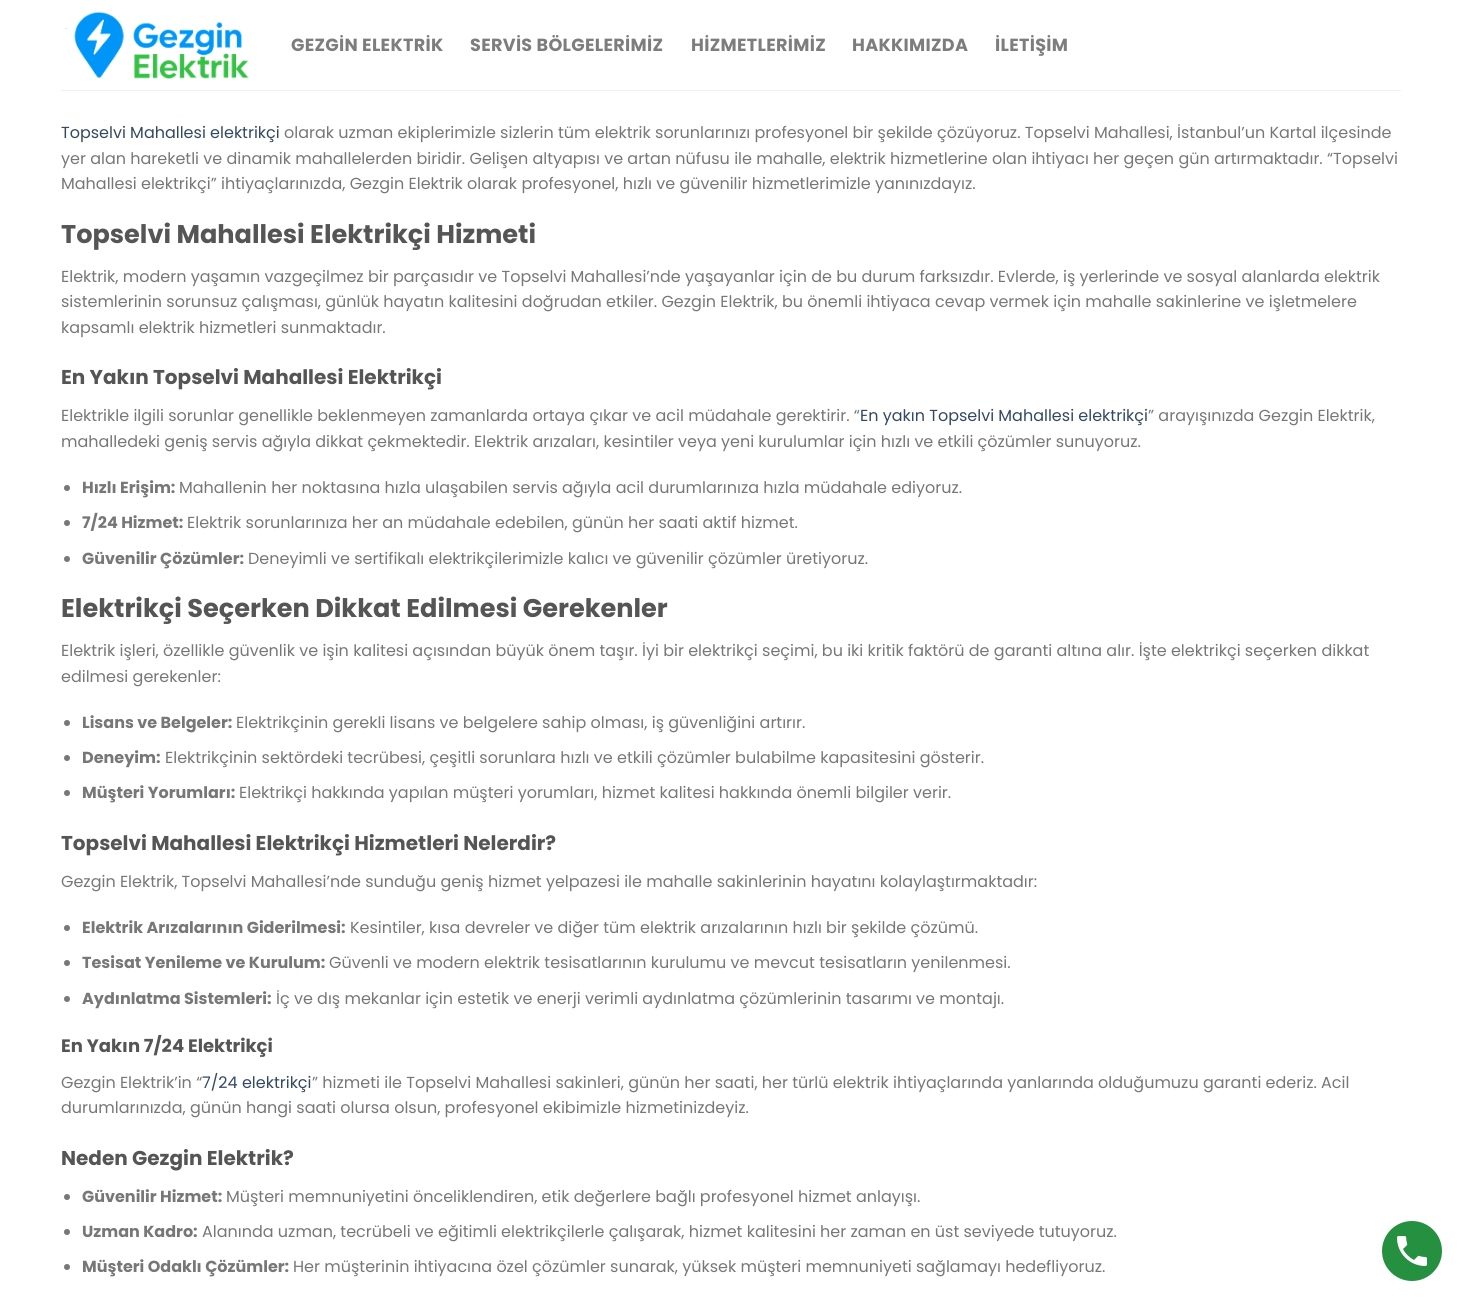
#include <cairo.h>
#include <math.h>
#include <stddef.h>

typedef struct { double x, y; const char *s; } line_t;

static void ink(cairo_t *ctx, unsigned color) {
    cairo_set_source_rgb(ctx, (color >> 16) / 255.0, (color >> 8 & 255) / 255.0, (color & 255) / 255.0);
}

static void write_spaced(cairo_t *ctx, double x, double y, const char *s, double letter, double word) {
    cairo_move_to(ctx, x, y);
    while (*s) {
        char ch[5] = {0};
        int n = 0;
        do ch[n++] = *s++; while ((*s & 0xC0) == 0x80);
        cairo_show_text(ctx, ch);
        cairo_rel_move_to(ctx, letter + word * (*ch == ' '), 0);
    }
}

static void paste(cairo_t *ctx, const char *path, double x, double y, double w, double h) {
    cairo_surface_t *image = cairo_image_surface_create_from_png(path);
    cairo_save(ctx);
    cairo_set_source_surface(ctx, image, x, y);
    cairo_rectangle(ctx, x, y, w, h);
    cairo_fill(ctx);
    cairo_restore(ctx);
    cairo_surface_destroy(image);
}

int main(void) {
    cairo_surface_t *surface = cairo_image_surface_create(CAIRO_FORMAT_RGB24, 1462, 1301);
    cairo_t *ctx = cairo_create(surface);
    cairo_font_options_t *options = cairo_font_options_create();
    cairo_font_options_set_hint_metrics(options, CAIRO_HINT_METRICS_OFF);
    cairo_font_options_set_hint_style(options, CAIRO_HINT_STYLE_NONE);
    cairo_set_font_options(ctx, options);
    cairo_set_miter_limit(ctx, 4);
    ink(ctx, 0xFFFFFF);
    cairo_paint(ctx);
    paste(ctx, "media/1.png", 64, 11, 185, 68);
    cairo_select_font_face(ctx, "Poppins", CAIRO_FONT_SLANT_NORMAL, CAIRO_FONT_WEIGHT_BOLD);
    cairo_set_font_size(ctx, 17.6);
    ink(ctx, 0x7D7D7D);
    {
        static const line_t items[] = {
            {291, 51, "GEZGİN ELEKTRİK"},
            {470, 51, "SERVİS BÖLGELERİMİZ"},
            {691, 51, "HİZMETLERİMİZ"},
            {852, 51, "HAKKIMIZDA"},
            {995, 51, "İLETİŞİM"},
        };
        for (size_t i = 0; i < sizeof items / sizeof *items; i++) {
            write_spaced(ctx, items[i].x, items[i].y, items[i].s, 0.3, 0);
        }
    }
    ink(ctx, 0xF1F1F1);
    cairo_rectangle(ctx, 61, 90, 1340, 1);
    cairo_fill(ctx);
    cairo_select_font_face(ctx, "Poppins", CAIRO_FONT_SLANT_NORMAL, CAIRO_FONT_WEIGHT_NORMAL);
    cairo_set_font_size(ctx, 16);
    ink(ctx, 0x334862);
    cairo_move_to(ctx, 61, 138);
    cairo_show_text(ctx, "Topselvi Mahallesi elektrikçi");
    ink(ctx, 0x777777);
    {
        static const line_t items[] = {
            {284, 138, "olarak uzman ekiplerimizle sizlerin tüm elektrik sorunlarınızı profesyonel bir şekilde çözüyoruz. Topselvi Mahallesi, İstanbul’un Kartal ilçesinde"},
            {61, 164, "yer alan hareketli ve dinamik mahallelerden biridir. Gelişen altyapısı ve artan nüfusu ile mahalle, elektrik hizmetlerine olan ihtiyacı her geçen gün artırmaktadır. “Topselvi"},
            {61, 189, "Mahallesi elektrikçi” ihtiyaçlarınızda, Gezgin Elektrik olarak profesyonel, hızlı ve güvenilir hizmetlerimizle yanınızdayız."},
        };
        for (size_t i = 0; i < sizeof items / sizeof *items; i++) {
            cairo_move_to(ctx, items[i].x, items[i].y);
            cairo_show_text(ctx, items[i].s);
        }
    }
    cairo_select_font_face(ctx, "Poppins", CAIRO_FONT_SLANT_NORMAL, CAIRO_FONT_WEIGHT_BOLD);
    cairo_set_font_size(ctx, 25.6);
    ink(ctx, 0x555555);
    cairo_move_to(ctx, 61, 243);
    cairo_show_text(ctx, "Topselvi Mahallesi Elektrikçi Hizmeti");
    cairo_select_font_face(ctx, "Poppins", CAIRO_FONT_SLANT_NORMAL, CAIRO_FONT_WEIGHT_NORMAL);
    cairo_set_font_size(ctx, 16);
    ink(ctx, 0x777777);
    {
        static const line_t items[] = {
            {61, 282, "Elektrik, modern yaşamın vazgeçilmez bir parçasıdır ve Topselvi Mahallesi’nde yaşayanlar için de bu durum farksızdır. Evlerde, iş yerlerinde ve sosyal alanlarda elektrik"},
            {61, 307, "sistemlerinin sorunsuz çalışması, günlük hayatın kalitesini doğrudan etkiler. Gezgin Elektrik, bu önemli ihtiyaca cevap vermek için mahalle sakinlerine ve işletmelere"},
            {61, 333, "kapsamlı elektrik hizmetleri sunmaktadır."},
        };
        for (size_t i = 0; i < sizeof items / sizeof *items; i++) {
            cairo_move_to(ctx, items[i].x, items[i].y);
            cairo_show_text(ctx, items[i].s);
        }
    }
    cairo_select_font_face(ctx, "Poppins", CAIRO_FONT_SLANT_NORMAL, CAIRO_FONT_WEIGHT_BOLD);
    cairo_set_font_size(ctx, 20);
    ink(ctx, 0x555555);
    cairo_move_to(ctx, 61, 384);
    cairo_show_text(ctx, "En Yakın Topselvi Mahallesi Elektrikçi");
    cairo_select_font_face(ctx, "Poppins", CAIRO_FONT_SLANT_NORMAL, CAIRO_FONT_WEIGHT_NORMAL);
    cairo_set_font_size(ctx, 16);
    ink(ctx, 0x777777);
    cairo_move_to(ctx, 61, 421);
    cairo_show_text(ctx, "Elektrikle ilgili sorunlar genellikle beklenmeyen zamanlarda ortaya çıkar ve acil müdahale gerektirir. “");
    ink(ctx, 0x334862);
    cairo_move_to(ctx, 860, 421);
    cairo_show_text(ctx, "En yakın Topselvi Mahallesi elektrikçi");
    ink(ctx, 0x777777);
    cairo_move_to(ctx, 1148, 421);
    cairo_show_text(ctx, "” arayışınızda Gezgin Elektrik,");
    cairo_move_to(ctx, 61, 447);
    cairo_show_text(ctx, "mahalledeki geniş servis ağıyla dikkat çekmektedir. Elektrik arızaları, kesintiler veya yeni kurulumlar için hızlı ve etkili çözümler sunuyoruz.");
    cairo_new_path(ctx);
    cairo_arc(ctx, 67, 488, 3, 0, 2 * M_PI);
    cairo_fill(ctx);
    cairo_select_font_face(ctx, "Poppins", CAIRO_FONT_SLANT_NORMAL, CAIRO_FONT_WEIGHT_BOLD);
    cairo_move_to(ctx, 82, 493);
    cairo_show_text(ctx, "Hızlı Erişim:");
    cairo_select_font_face(ctx, "Poppins", CAIRO_FONT_SLANT_NORMAL, CAIRO_FONT_WEIGHT_NORMAL);
    cairo_move_to(ctx, 179, 493);
    cairo_show_text(ctx, "Mahallenin her noktasına hızla ulaşabilen servis ağıyla acil durumlarınıza hızla müdahale ediyoruz.");
    cairo_new_path(ctx);
    cairo_arc(ctx, 67, 523, 3, 0, 2 * M_PI);
    cairo_fill(ctx);
    cairo_select_font_face(ctx, "Poppins", CAIRO_FONT_SLANT_NORMAL, CAIRO_FONT_WEIGHT_BOLD);
    cairo_move_to(ctx, 82, 528);
    cairo_show_text(ctx, "7/24 Hizmet:");
    cairo_select_font_face(ctx, "Poppins", CAIRO_FONT_SLANT_NORMAL, CAIRO_FONT_WEIGHT_NORMAL);
    cairo_move_to(ctx, 187, 528);
    cairo_show_text(ctx, "Elektrik sorunlarınıza her an müdahale edebilen, günün her saati aktif hizmet.");
    cairo_new_path(ctx);
    cairo_arc(ctx, 67, 559, 3, 0, 2 * M_PI);
    cairo_fill(ctx);
    cairo_select_font_face(ctx, "Poppins", CAIRO_FONT_SLANT_NORMAL, CAIRO_FONT_WEIGHT_BOLD);
    cairo_move_to(ctx, 82, 564);
    cairo_show_text(ctx, "Güvenilir Çözümler:");
    cairo_select_font_face(ctx, "Poppins", CAIRO_FONT_SLANT_NORMAL, CAIRO_FONT_WEIGHT_NORMAL);
    cairo_move_to(ctx, 248, 564);
    cairo_show_text(ctx, "Deneyimli ve sertifikalı elektrikçilerimizle kalıcı ve güvenilir çözümler üretiyoruz.");
    cairo_select_font_face(ctx, "Poppins", CAIRO_FONT_SLANT_NORMAL, CAIRO_FONT_WEIGHT_BOLD);
    cairo_set_font_size(ctx, 25.6);
    ink(ctx, 0x555555);
    cairo_move_to(ctx, 61, 617);
    cairo_show_text(ctx, "Elektrikçi Seçerken Dikkat Edilmesi Gerekenler");
    cairo_select_font_face(ctx, "Poppins", CAIRO_FONT_SLANT_NORMAL, CAIRO_FONT_WEIGHT_NORMAL);
    cairo_set_font_size(ctx, 16);
    ink(ctx, 0x777777);
    cairo_move_to(ctx, 61, 656);
    cairo_show_text(ctx, "Elektrik işleri, özellikle güvenlik ve işin kalitesi açısından büyük önem taşır. İyi bir elektrikçi seçimi, bu iki kritik faktörü de garanti altına alır. İşte elektrikçi seçerken dikkat");
    cairo_move_to(ctx, 61, 682);
    cairo_show_text(ctx, "edilmesi gerekenler:");
    cairo_new_path(ctx);
    cairo_arc(ctx, 67, 723, 3, 0, 2 * M_PI);
    cairo_fill(ctx);
    cairo_select_font_face(ctx, "Poppins", CAIRO_FONT_SLANT_NORMAL, CAIRO_FONT_WEIGHT_BOLD);
    cairo_move_to(ctx, 82, 728);
    cairo_show_text(ctx, "Lisans ve Belgeler:");
    cairo_select_font_face(ctx, "Poppins", CAIRO_FONT_SLANT_NORMAL, CAIRO_FONT_WEIGHT_NORMAL);
    cairo_move_to(ctx, 236, 728);
    cairo_show_text(ctx, "Elektrikçinin gerekli lisans ve belgelere sahip olması, iş güvenliğini artırır.");
    cairo_new_path(ctx);
    cairo_arc(ctx, 67, 758, 3, 0, 2 * M_PI);
    cairo_fill(ctx);
    cairo_select_font_face(ctx, "Poppins", CAIRO_FONT_SLANT_NORMAL, CAIRO_FONT_WEIGHT_BOLD);
    cairo_move_to(ctx, 82, 763);
    cairo_show_text(ctx, "Deneyim:");
    cairo_select_font_face(ctx, "Poppins", CAIRO_FONT_SLANT_NORMAL, CAIRO_FONT_WEIGHT_NORMAL);
    cairo_move_to(ctx, 165, 763);
    cairo_show_text(ctx, "Elektrikçinin sektördeki tecrübesi, çeşitli sorunlara hızlı ve etkili çözümler bulabilme kapasitesini gösterir.");
    cairo_new_path(ctx);
    cairo_arc(ctx, 67, 793, 3, 0, 2 * M_PI);
    cairo_fill(ctx);
    cairo_select_font_face(ctx, "Poppins", CAIRO_FONT_SLANT_NORMAL, CAIRO_FONT_WEIGHT_BOLD);
    cairo_move_to(ctx, 82, 798);
    cairo_show_text(ctx, "Müşteri Yorumları:");
    cairo_select_font_face(ctx, "Poppins", CAIRO_FONT_SLANT_NORMAL, CAIRO_FONT_WEIGHT_NORMAL);
    cairo_move_to(ctx, 239, 798);
    cairo_show_text(ctx, "Elektrikçi hakkında yapılan müşteri yorumları, hizmet kalitesi hakkında önemli bilgiler verir.");
    cairo_select_font_face(ctx, "Poppins", CAIRO_FONT_SLANT_NORMAL, CAIRO_FONT_WEIGHT_BOLD);
    cairo_set_font_size(ctx, 20);
    ink(ctx, 0x555555);
    cairo_move_to(ctx, 61, 850);
    cairo_show_text(ctx, "Topselvi Mahallesi Elektrikçi Hizmetleri Nelerdir?");
    cairo_select_font_face(ctx, "Poppins", CAIRO_FONT_SLANT_NORMAL, CAIRO_FONT_WEIGHT_NORMAL);
    cairo_set_font_size(ctx, 16);
    ink(ctx, 0x777777);
    cairo_move_to(ctx, 61, 887);
    cairo_show_text(ctx, "Gezgin Elektrik, Topselvi Mahallesi’nde sunduğu geniş hizmet yelpazesi ile mahalle sakinlerinin hayatını kolaylaştırmaktadır:");
    cairo_new_path(ctx);
    cairo_arc(ctx, 67, 928, 3, 0, 2 * M_PI);
    cairo_fill(ctx);
    cairo_select_font_face(ctx, "Poppins", CAIRO_FONT_SLANT_NORMAL, CAIRO_FONT_WEIGHT_BOLD);
    cairo_move_to(ctx, 82, 933);
    cairo_show_text(ctx, "Elektrik Arızalarının Giderilmesi:");
    cairo_select_font_face(ctx, "Poppins", CAIRO_FONT_SLANT_NORMAL, CAIRO_FONT_WEIGHT_NORMAL);
    cairo_move_to(ctx, 350, 933);
    cairo_show_text(ctx, "Kesintiler, kısa devreler ve diğer tüm elektrik arızalarının hızlı bir şekilde çözümü.");
    cairo_new_path(ctx);
    cairo_arc(ctx, 67, 963, 3, 0, 2 * M_PI);
    cairo_fill(ctx);
    cairo_select_font_face(ctx, "Poppins", CAIRO_FONT_SLANT_NORMAL, CAIRO_FONT_WEIGHT_BOLD);
    cairo_move_to(ctx, 82, 968);
    cairo_show_text(ctx, "Tesisat Yenileme ve Kurulum:");
    cairo_select_font_face(ctx, "Poppins", CAIRO_FONT_SLANT_NORMAL, CAIRO_FONT_WEIGHT_NORMAL);
    cairo_move_to(ctx, 329, 968);
    cairo_show_text(ctx, "Güvenli ve modern elektrik tesisatlarının kurulumu ve mevcut tesisatların yenilenmesi.");
    cairo_new_path(ctx);
    cairo_arc(ctx, 67, 999, 3, 0, 2 * M_PI);
    cairo_fill(ctx);
    cairo_select_font_face(ctx, "Poppins", CAIRO_FONT_SLANT_NORMAL, CAIRO_FONT_WEIGHT_BOLD);
    cairo_move_to(ctx, 82, 1004);
    cairo_show_text(ctx, "Aydınlatma Sistemleri:");
    cairo_select_font_face(ctx, "Poppins", CAIRO_FONT_SLANT_NORMAL, CAIRO_FONT_WEIGHT_NORMAL);
    cairo_move_to(ctx, 276, 1004);
    cairo_show_text(ctx, "İç ve dış mekanlar için estetik ve enerji verimli aydınlatma çözümlerinin tasarımı ve montajı.");
    cairo_select_font_face(ctx, "Poppins", CAIRO_FONT_SLANT_NORMAL, CAIRO_FONT_WEIGHT_BOLD);
    cairo_set_font_size(ctx, 18);
    ink(ctx, 0x555555);
    cairo_move_to(ctx, 61, 1052);
    cairo_show_text(ctx, "En Yakın 7/24 Elektrikçi");
    cairo_select_font_face(ctx, "Poppins", CAIRO_FONT_SLANT_NORMAL, CAIRO_FONT_WEIGHT_NORMAL);
    cairo_set_font_size(ctx, 16);
    ink(ctx, 0x777777);
    cairo_move_to(ctx, 61, 1088);
    cairo_show_text(ctx, "Gezgin Elektrik’in “");
    ink(ctx, 0x334862);
    cairo_move_to(ctx, 202, 1088);
    cairo_show_text(ctx, "7/24 elektrikçi");
    ink(ctx, 0x777777);
    cairo_move_to(ctx, 312, 1088);
    cairo_show_text(ctx, "” hizmeti ile Topselvi Mahallesi sakinleri, günün her saati, her türlü elektrik ihtiyaçlarında yanlarında olduğumuzu garanti ederiz. Acil");
    cairo_move_to(ctx, 61, 1113);
    cairo_show_text(ctx, "durumlarınızda, günün hangi saati olursa olsun, profesyonel ekibimizle hizmetinizdeyiz.");
    cairo_select_font_face(ctx, "Poppins", CAIRO_FONT_SLANT_NORMAL, CAIRO_FONT_WEIGHT_BOLD);
    cairo_set_font_size(ctx, 20);
    ink(ctx, 0x555555);
    cairo_move_to(ctx, 61, 1165);
    cairo_show_text(ctx, "Neden Gezgin Elektrik?");
    ink(ctx, 0x777777);
    cairo_new_path(ctx);
    cairo_arc(ctx, 67, 1197, 3, 0, 2 * M_PI);
    cairo_fill(ctx);
    cairo_set_font_size(ctx, 16);
    cairo_move_to(ctx, 82, 1202);
    cairo_show_text(ctx, "Güvenilir Hizmet:");
    cairo_select_font_face(ctx, "Poppins", CAIRO_FONT_SLANT_NORMAL, CAIRO_FONT_WEIGHT_NORMAL);
    cairo_move_to(ctx, 226, 1202);
    cairo_show_text(ctx, "Müşteri memnuniyetini önceliklendiren, etik değerlere bağlı profesyonel hizmet anlayışı.");
    cairo_new_path(ctx);
    cairo_arc(ctx, 67, 1232, 3, 0, 2 * M_PI);
    cairo_fill(ctx);
    cairo_select_font_face(ctx, "Poppins", CAIRO_FONT_SLANT_NORMAL, CAIRO_FONT_WEIGHT_BOLD);
    cairo_move_to(ctx, 82, 1237);
    cairo_show_text(ctx, "Uzman Kadro:");
    cairo_select_font_face(ctx, "Poppins", CAIRO_FONT_SLANT_NORMAL, CAIRO_FONT_WEIGHT_NORMAL);
    cairo_move_to(ctx, 202, 1237);
    cairo_show_text(ctx, "Alanında uzman, tecrübeli ve eğitimli elektrikçilerle çalışarak, hizmet kalitesini her zaman en üst seviyede tutuyoruz.");
    cairo_new_path(ctx);
    cairo_arc(ctx, 67, 1267, 3, 0, 2 * M_PI);
    cairo_fill(ctx);
    cairo_select_font_face(ctx, "Poppins", CAIRO_FONT_SLANT_NORMAL, CAIRO_FONT_WEIGHT_BOLD);
    cairo_move_to(ctx, 82, 1272);
    cairo_show_text(ctx, "Müşteri Odaklı Çözümler:");
    cairo_select_font_face(ctx, "Poppins", CAIRO_FONT_SLANT_NORMAL, CAIRO_FONT_WEIGHT_NORMAL);
    cairo_move_to(ctx, 293, 1272);
    cairo_show_text(ctx, "Her müşterinin ihtiyacına özel çözümler sunarak, yüksek müşteri memnuniyeti sağlamayı hedefliyoruz.");
    ink(ctx, 0x269041);
    cairo_new_path(ctx);
    cairo_arc(ctx, 1412, 1251, 30, 0, 2 * M_PI);
    cairo_fill(ctx);
    paste(ctx, "media/2.png", 1397, 1236, 30, 30);
    cairo_surface_write_to_png(surface, "image.png");
    cairo_font_options_destroy(options);
    cairo_destroy(ctx);
    cairo_surface_destroy(surface);
    return 0;
}
